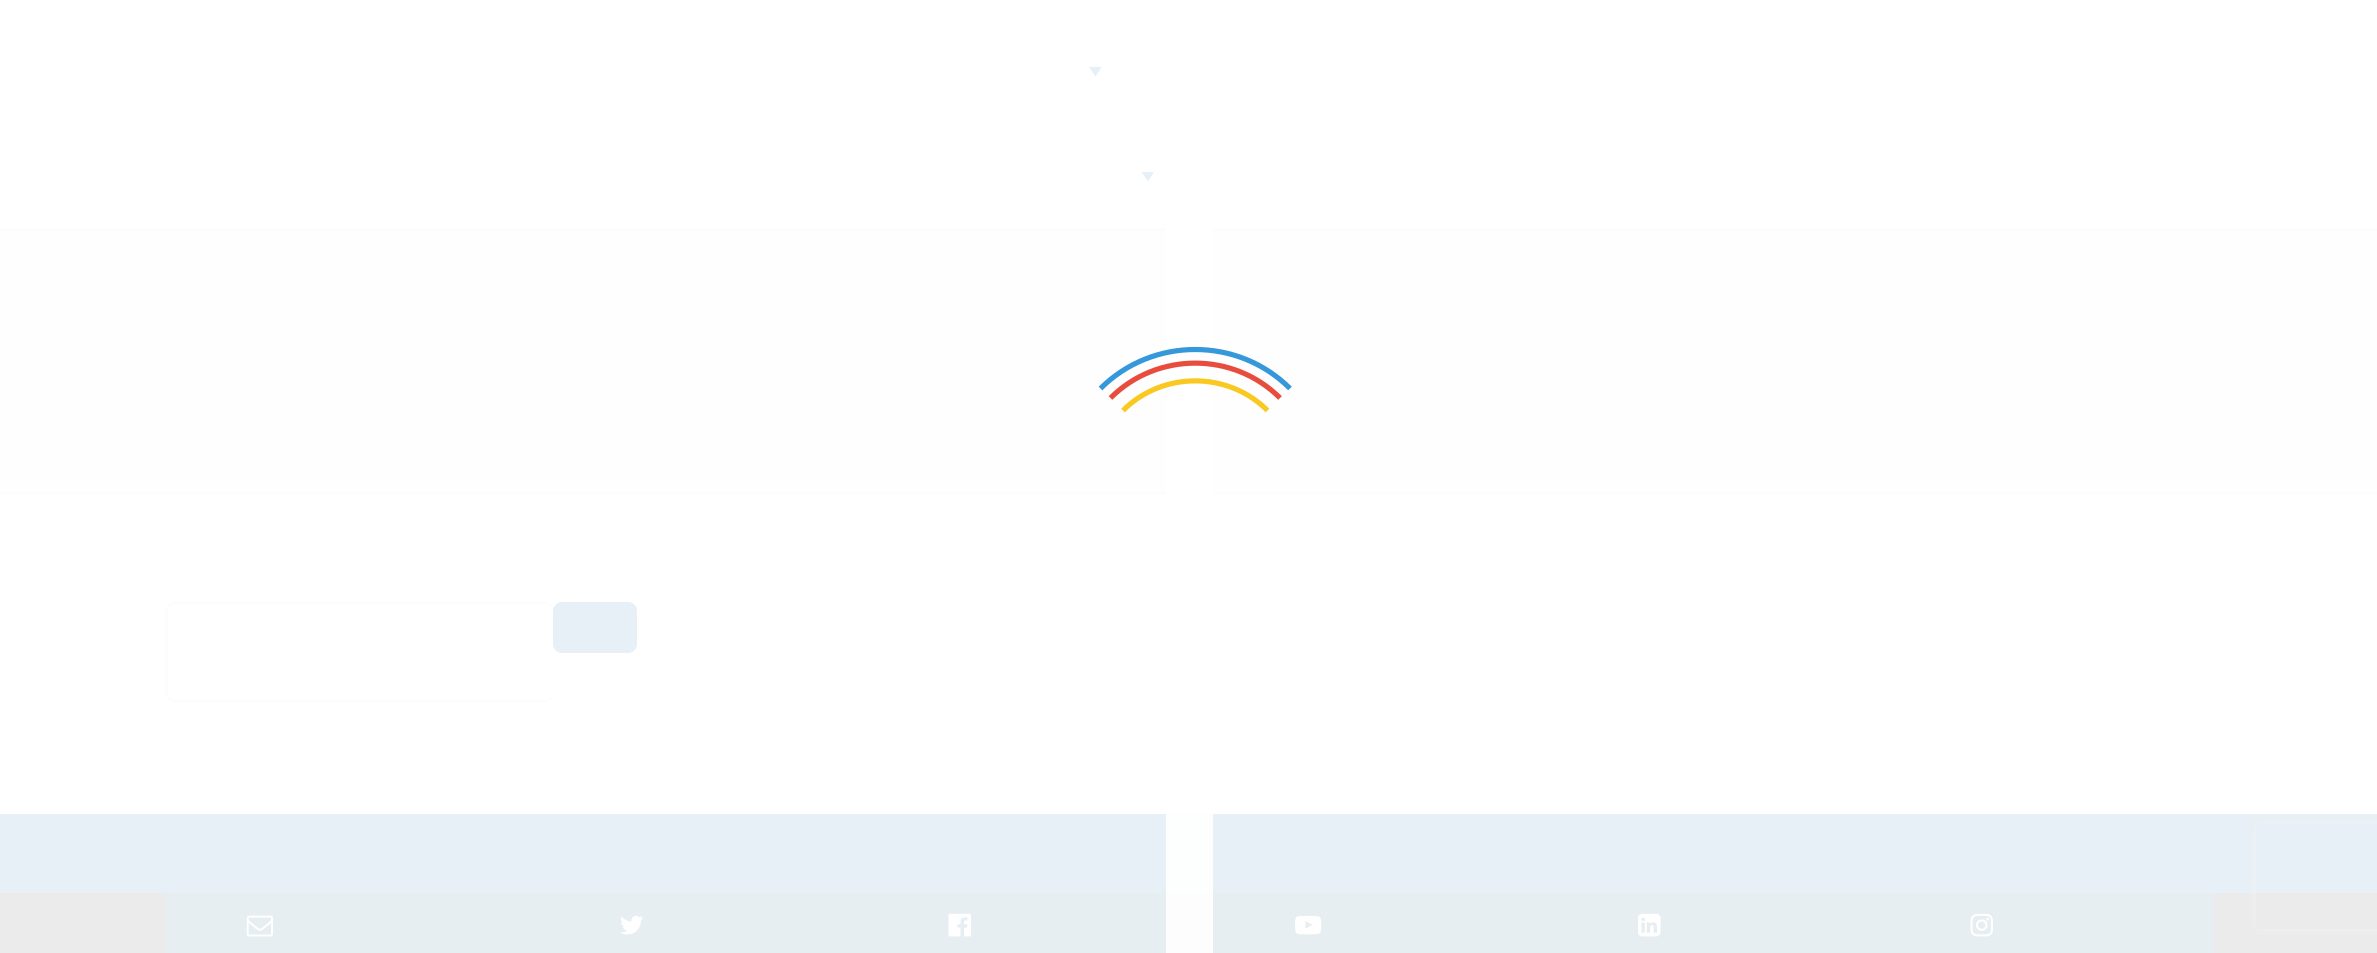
#include <cairo.h>
#include <math.h>
#include <stddef.h>

typedef struct { double x, y, w, h; unsigned color; } box_t;

static void ink(cairo_t *ctx, unsigned color) {
    cairo_set_source_rgb(ctx, (color >> 16) / 255.0, (color >> 8 & 255) / 255.0, (color & 255) / 255.0);
}

static void round_path(cairo_t *ctx, double x, double y, double w, double h, double r) {
    cairo_new_sub_path(ctx);
    cairo_arc(ctx, x + w - r, y + h - r, r, 0, M_PI / 2);
    cairo_arc(ctx, x + r, y + h - r, r, M_PI / 2, M_PI);
    cairo_arc(ctx, x + r, y + r, r, M_PI, 1.5 * M_PI);
    cairo_arc(ctx, x + w - r, y + r, r, 1.5 * M_PI, 2 * M_PI);
    cairo_close_path(ctx);
}

static void blur_box(cairo_t *ctx, double x, double y, double w, double h, double r, double blur, double alpha) {
    cairo_push_group_with_content(ctx, CAIRO_CONTENT_ALPHA);
    cairo_set_operator(ctx, CAIRO_OPERATOR_SOURCE);
    for (int i = 15; i >= -15 && fmin(w, h) + blur * i / 3 > 0; i -= 2) {
        double e = blur * i / 6;
        cairo_set_source_rgba(ctx, 0, 0, 0, alpha * erfc((i - 1) / 8.5) / 2);
        round_path(ctx, x - e, y - e, w + 2 * e, h + 2 * e, fmax(0, fmin(r + e + blur * .6, fmin(w, h) / 2 + e)));
        cairo_fill(ctx);
    }
    cairo_pattern_t *soft = cairo_pop_group(ctx);
    cairo_mask(ctx, soft);
    cairo_pattern_destroy(soft);
}

static void paste(cairo_t *ctx, const char *path, double x, double y, double w, double h) {
    cairo_surface_t *image = cairo_image_surface_create_from_png(path);
    cairo_save(ctx);
    cairo_set_source_surface(ctx, image, x, y);
    cairo_rectangle(ctx, x, y, w, h);
    cairo_fill(ctx);
    cairo_restore(ctx);
    cairo_surface_destroy(image);
}

int main(void) {
    cairo_surface_t *surface = cairo_image_surface_create(CAIRO_FORMAT_RGB24, 2377, 953);
    cairo_t *ctx = cairo_create(surface);
    cairo_font_options_t *options = cairo_font_options_create();
    cairo_font_options_set_hint_metrics(options, CAIRO_HINT_METRICS_OFF);
    cairo_font_options_set_hint_style(options, CAIRO_HINT_STYLE_NONE);
    cairo_set_font_options(ctx, options);
    cairo_set_miter_limit(ctx, 4);
    ink(ctx, 0xFFFFFF);
    cairo_paint(ctx);
    ink(ctx, 0xF8F8F8);
    cairo_rectangle(ctx, 0, 229, 2377, 263);
    cairo_fill(ctx);
    cairo_save(ctx);
    cairo_rectangle(ctx, 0, 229, 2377, 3);
    cairo_clip(ctx);
    ink(ctx, 0x000000);
    blur_box(ctx, 0, 0, 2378, 229, 0, 2.5, 0.15);
    cairo_restore(ctx);
    cairo_set_source_rgba(ctx, 0, 0, 0, 0.07);
    cairo_rectangle(ctx, 0, 228, 2377, 2);
    cairo_fill(ctx);
    ink(ctx, 0x0066A0);
    cairo_new_path(ctx);
    cairo_move_to(ctx, 1101.5, 67);
    cairo_line_to(ctx, 1095.5, 76.5);
    cairo_line_to(ctx, 1089, 67);
    cairo_close_path(ctx);
    cairo_fill(ctx);
    cairo_new_path(ctx);
    cairo_move_to(ctx, 1154, 172);
    cairo_line_to(ctx, 1148, 181.5);
    cairo_line_to(ctx, 1141.5, 172);
    cairo_close_path(ctx);
    cairo_fill(ctx);
    ink(ctx, 0xE0E0E0);
    cairo_rectangle(ctx, 0, 492, 2377, 2);
    cairo_fill(ctx);
    ink(ctx, 0xDDDDDD);
    cairo_set_fill_rule(ctx, CAIRO_FILL_RULE_EVEN_ODD);
    cairo_new_path(ctx);
    cairo_move_to(ctx, 175, 602);
    cairo_line_to(ctx, 544, 602);
    cairo_curve_to(ctx, 549, 602, 553, 606, 553, 611);
    cairo_line_to(ctx, 553, 693);
    cairo_curve_to(ctx, 553, 698, 549, 702, 544, 702);
    cairo_line_to(ctx, 175, 702);
    cairo_curve_to(ctx, 170, 702, 166, 698, 166, 693);
    cairo_line_to(ctx, 166, 611);
    cairo_curve_to(ctx, 166, 606, 170, 602, 175, 602);
    cairo_close_path(ctx);
    cairo_move_to(ctx, 175, 604);
    cairo_line_to(ctx, 544, 604);
    cairo_curve_to(ctx, 549, 604, 553, 607, 553, 611);
    cairo_line_to(ctx, 553, 693);
    cairo_curve_to(ctx, 553, 697, 549, 700, 544, 700);
    cairo_line_to(ctx, 175, 700);
    cairo_curve_to(ctx, 171, 700, 168, 697, 168, 693);
    cairo_line_to(ctx, 168, 611);
    cairo_curve_to(ctx, 168, 607, 171, 604, 175, 604);
    cairo_close_path(ctx);
    cairo_fill(ctx);
    ink(ctx, 0x0066A0);
    round_path(ctx, 553, 602, 84, 51, 9);
    cairo_fill(ctx);
    {
        static const box_t items[] = {
            {0, 814, 2377, 79, 0x0066A0},
            {0, 893, 2377, 60, 0x313131},
            {166, 893, 2048, 60, 0x0C547D},
        };
        for (size_t i = 0; i < sizeof items / sizeof *items; i++) {
            ink(ctx, items[i].color);
            cairo_rectangle(ctx, items[i].x, items[i].y, items[i].w, items[i].h);
            cairo_fill(ctx);
        }
    }
    paste(ctx, "media/1.png", 246, 915, 27, 22);
    paste(ctx, "media/2.png", 620, 915, 24, 20);
    paste(ctx, "media/3.png", 948, 913, 23, 24);
    cairo_set_source_rgba(ctx, 1, 1, 1, 0.9);
    cairo_rectangle(ctx, 0, 67, 1213, 886);
    cairo_fill(ctx);
    cairo_save(ctx);
    cairo_new_path(ctx);
    cairo_move_to(ctx, 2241, 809);
    cairo_line_to(ctx, 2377, 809);
    cairo_line_to(ctx, 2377, 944);
    cairo_line_to(ctx, 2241, 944);
    cairo_close_path(ctx);
    cairo_move_to(ctx, 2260, 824);
    cairo_line_to(ctx, 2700, 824);
    cairo_curve_to(ctx, 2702, 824, 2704, 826, 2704, 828);
    cairo_line_to(ctx, 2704, 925);
    cairo_curve_to(ctx, 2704, 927, 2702, 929, 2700, 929);
    cairo_line_to(ctx, 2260, 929);
    cairo_curve_to(ctx, 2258, 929, 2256, 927, 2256, 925);
    cairo_line_to(ctx, 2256, 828);
    cairo_curve_to(ctx, 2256, 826, 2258, 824, 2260, 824);
    cairo_close_path(ctx);
    cairo_clip(ctx);
    ink(ctx, 0x808080);
    blur_box(ctx, 2256, 824, 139, 105, 4, 4.5, 1);
    cairo_restore(ctx);
    paste(ctx, "media/4.png", 1295, 915, 27, 20);
    paste(ctx, "media/5.png", 1638, 913, 23, 24);
    paste(ctx, "media/6.png", 1970, 913, 23, 24);
    cairo_rectangle(ctx, 1166, 228, 1211, 725);
    cairo_fill(ctx);
    cairo_new_path(ctx);
    cairo_move_to(ctx, 1100.5, 388.5);
    cairo_curve_to(ctx, 1152.5, 336.5, 1238, 336.5, 1290, 388.5);
    ink(ctx, 0x3498DB);
    cairo_set_line_width(ctx, 5.2);
    cairo_stroke(ctx);
    cairo_new_path(ctx);
    cairo_move_to(ctx, 1110.5, 398);
    cairo_curve_to(ctx, 1157, 351.5, 1233.5, 351.5, 1280, 398);
    ink(ctx, 0xE74C3C);
    cairo_stroke(ctx);
    cairo_new_path(ctx);
    cairo_move_to(ctx, 1123, 410.5);
    cairo_curve_to(ctx, 1162.5, 371, 1228, 371, 1267.5, 410.5);
    ink(ctx, 0xF9C922);
    cairo_stroke(ctx);
    cairo_surface_write_to_png(surface, "image.png");
    cairo_font_options_destroy(options);
    cairo_destroy(ctx);
    cairo_surface_destroy(surface);
    return 0;
}
